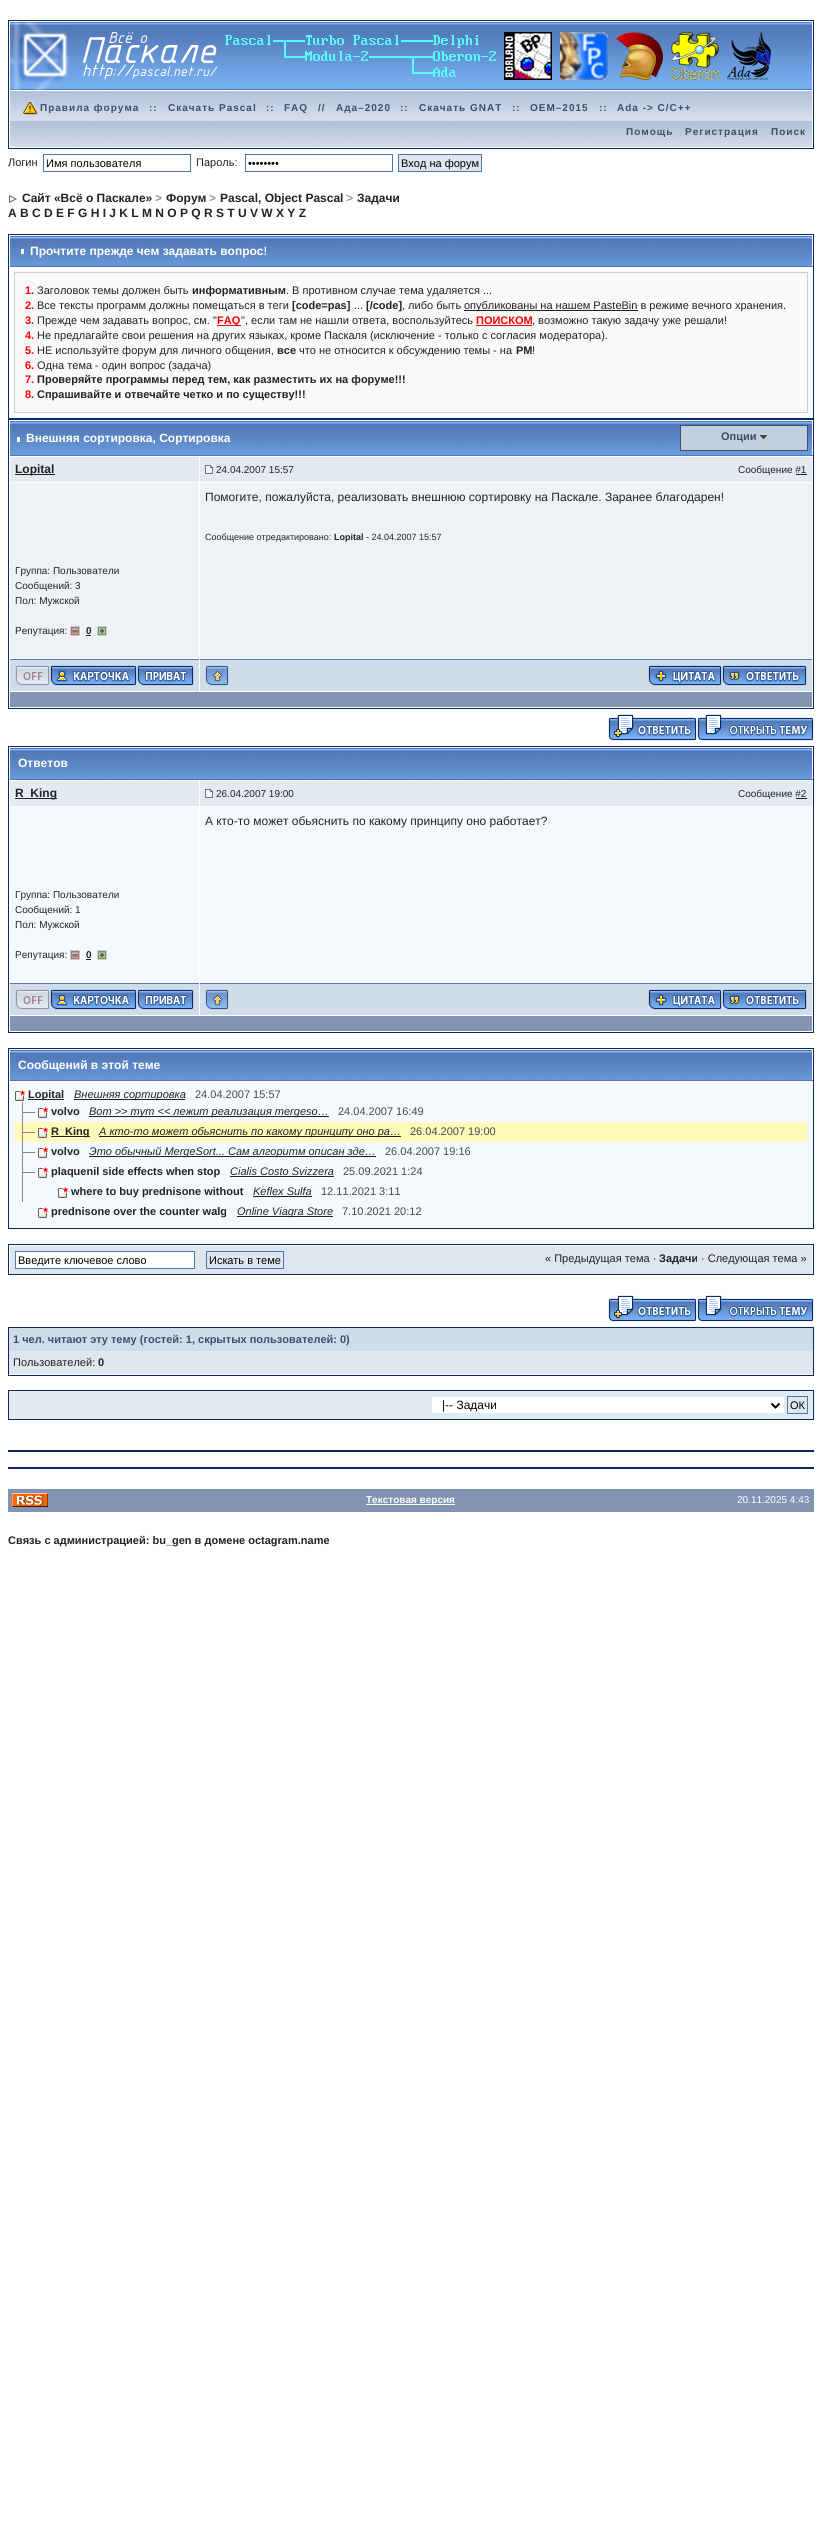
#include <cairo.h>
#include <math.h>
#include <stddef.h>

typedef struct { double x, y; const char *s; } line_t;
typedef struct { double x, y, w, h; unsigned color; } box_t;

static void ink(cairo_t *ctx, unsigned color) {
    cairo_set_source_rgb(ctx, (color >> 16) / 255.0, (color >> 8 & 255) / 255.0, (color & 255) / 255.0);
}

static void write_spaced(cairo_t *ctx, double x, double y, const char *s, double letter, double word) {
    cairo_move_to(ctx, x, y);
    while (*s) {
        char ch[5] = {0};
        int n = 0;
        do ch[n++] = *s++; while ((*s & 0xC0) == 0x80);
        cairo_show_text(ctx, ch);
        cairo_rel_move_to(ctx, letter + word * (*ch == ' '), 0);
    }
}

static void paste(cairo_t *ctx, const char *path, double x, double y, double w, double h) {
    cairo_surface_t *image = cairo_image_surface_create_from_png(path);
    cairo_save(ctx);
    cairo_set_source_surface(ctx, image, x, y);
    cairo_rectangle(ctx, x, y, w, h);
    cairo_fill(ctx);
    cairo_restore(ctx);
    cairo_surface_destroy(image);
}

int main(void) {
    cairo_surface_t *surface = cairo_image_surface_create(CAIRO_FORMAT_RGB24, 822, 2538);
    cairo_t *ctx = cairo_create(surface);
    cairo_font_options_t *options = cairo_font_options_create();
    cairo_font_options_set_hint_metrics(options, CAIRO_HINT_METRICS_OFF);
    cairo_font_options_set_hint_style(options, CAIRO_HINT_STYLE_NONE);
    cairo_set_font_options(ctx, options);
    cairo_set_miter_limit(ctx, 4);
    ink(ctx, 0xFFFFFF);
    cairo_paint(ctx);
    cairo_rectangle(ctx, 8.5, 20.5, 805, 128);
    ink(ctx, 0x072A66);
    cairo_set_line_width(ctx, 1);
    cairo_stroke(ctx);
    paste(ctx, "media/1.png", 771, 22, 41, 68);
    paste(ctx, "media/2.png", 10, 22, 761, 68);
    paste(ctx, "media/3.png", 10, 91, 802, 56);
    paste(ctx, "media/4.png", 23, 101, 15, 14);
    cairo_select_font_face(ctx, "Liberation Sans", CAIRO_FONT_SLANT_NORMAL, CAIRO_FONT_WEIGHT_BOLD);
    cairo_set_font_size(ctx, 10);
    ink(ctx, 0x3A4F6C);
    {
        static const line_t items[] = {
            {40, 111, "Правила форума"},
            {149, 111, "::"},
            {168, 111, "Скачать Pascal"},
            {266, 111, "::"},
            {284, 111, "FAQ"},
            {318, 111, "//"},
            {336, 111, "Ада–2020"},
            {400, 111, "::"},
            {419, 111, "Скачать GNAT"},
            {512, 111, "::"},
            {530, 111, "OEM–2015"},
            {599, 111, "::"},
            {617, 111, "Ada -> C/C++"},
            {626, 135, "Помощь"},
            {685, 135, "Регистрация"},
            {771, 135, "Поиск"},
        };
        for (size_t i = 0; i < sizeof items / sizeof *items; i++) {
            write_spaced(ctx, items[i].x, items[i].y, items[i].s, 1, 0);
        }
    }
    cairo_select_font_face(ctx, "Liberation Sans", CAIRO_FONT_SLANT_NORMAL, CAIRO_FONT_WEIGHT_NORMAL);
    cairo_set_font_size(ctx, 11);
    ink(ctx, 0x222222);
    cairo_move_to(ctx, 8, 166);
    cairo_show_text(ctx, "Логин");
    cairo_rectangle(ctx, 43.5, 154.5, 147, 17);
    ink(ctx, 0x4C77B6);
    cairo_stroke(ctx);
    ink(ctx, 0x000000);
    cairo_move_to(ctx, 46, 167);
    cairo_show_text(ctx, "Имя пользователя");
    ink(ctx, 0x222222);
    cairo_move_to(ctx, 196, 166);
    cairo_show_text(ctx, "Пароль:");
    cairo_rectangle(ctx, 245.5, 154.5, 147, 17);
    ink(ctx, 0x4C77B6);
    cairo_stroke(ctx);
    ink(ctx, 0x000000);
    cairo_move_to(ctx, 248, 167);
    cairo_show_text(ctx, "••••••••");
    ink(ctx, 0xDFE6EF);
    cairo_rectangle(ctx, 398.5, 154.5, 83, 17);
    cairo_fill_preserve(ctx);
    ink(ctx, 0x4C77B6);
    cairo_stroke(ctx);
    ink(ctx, 0x000000);
    cairo_move_to(ctx, 401, 167);
    cairo_show_text(ctx, "Вход на форум");
    paste(ctx, "media/5.png", 9, 195, 8, 8);
    cairo_select_font_face(ctx, "Liberation Sans", CAIRO_FONT_SLANT_NORMAL, CAIRO_FONT_WEIGHT_BOLD);
    cairo_set_font_size(ctx, 12);
    ink(ctx, 0x222222);
    cairo_move_to(ctx, 22, 202);
    cairo_show_text(ctx, "Сайт «Всё о Паскале»");
    ink(ctx, 0x999999);
    cairo_move_to(ctx, 155, 202);
    cairo_show_text(ctx, ">");
    ink(ctx, 0x222222);
    cairo_move_to(ctx, 166, 202);
    cairo_show_text(ctx, "Форум");
    ink(ctx, 0x999999);
    cairo_move_to(ctx, 209, 202);
    cairo_show_text(ctx, ">");
    ink(ctx, 0x222222);
    cairo_move_to(ctx, 220, 202);
    cairo_show_text(ctx, "Pascal, Object Pascal");
    ink(ctx, 0x999999);
    cairo_move_to(ctx, 346, 202);
    cairo_show_text(ctx, ">");
    ink(ctx, 0x222222);
    cairo_move_to(ctx, 357, 202);
    cairo_show_text(ctx, "Задачи");
    cairo_move_to(ctx, 8, 217);
    cairo_show_text(ctx, "A B C D E F G H I J K L M N O P Q R S T U V W X Y Z");
    cairo_rectangle(ctx, 8.5, 234.5, 805, 184);
    ink(ctx, 0x072A66);
    cairo_stroke(ctx);
    paste(ctx, "media/6.png", 10, 236, 802, 30);
    {
        static const box_t items[] = {
            {9, 266, 804, 1, 0x5176B5},
            {9, 266, 1, 1, 0xFFFFFF},
            {21, 249, 3, 5, 0xFFFFFF},
        };
        for (size_t i = 0; i < sizeof items / sizeof *items; i++) {
            ink(ctx, items[i].color);
            cairo_rectangle(ctx, items[i].x, items[i].y, items[i].w, items[i].h);
            cairo_fill(ctx);
        }
    }
    cairo_move_to(ctx, 30, 255);
    cairo_show_text(ctx, "Прочтите прежде чем задавать вопрос!");
    ink(ctx, 0xF9F9F9);
    cairo_rectangle(ctx, 14.5, 272.5, 793, 140);
    cairo_fill_preserve(ctx);
    ink(ctx, 0xCCCCCC);
    cairo_stroke(ctx);
    cairo_set_font_size(ctx, 11);
    ink(ctx, 0xFF0000);
    cairo_move_to(ctx, 25, 294);
    cairo_show_text(ctx, "1.");
    cairo_select_font_face(ctx, "Liberation Sans", CAIRO_FONT_SLANT_NORMAL, CAIRO_FONT_WEIGHT_NORMAL);
    ink(ctx, 0x222222);
    cairo_move_to(ctx, 37, 294);
    cairo_show_text(ctx, "Заголовок темы должен быть");
    cairo_select_font_face(ctx, "Liberation Sans", CAIRO_FONT_SLANT_NORMAL, CAIRO_FONT_WEIGHT_BOLD);
    cairo_move_to(ctx, 192, 294);
    cairo_show_text(ctx, "информативным");
    cairo_select_font_face(ctx, "Liberation Sans", CAIRO_FONT_SLANT_NORMAL, CAIRO_FONT_WEIGHT_NORMAL);
    cairo_move_to(ctx, 286, 294);
    cairo_show_text(ctx, ". В противном случае тема удаляется ...");
    cairo_select_font_face(ctx, "Liberation Sans", CAIRO_FONT_SLANT_NORMAL, CAIRO_FONT_WEIGHT_BOLD);
    ink(ctx, 0xFF0000);
    cairo_move_to(ctx, 25, 309);
    cairo_show_text(ctx, "2.");
    cairo_select_font_face(ctx, "Liberation Sans", CAIRO_FONT_SLANT_NORMAL, CAIRO_FONT_WEIGHT_NORMAL);
    ink(ctx, 0x222222);
    cairo_move_to(ctx, 37, 309);
    cairo_show_text(ctx, "Все тексты программ должны помещаться в теги");
    cairo_select_font_face(ctx, "Liberation Sans", CAIRO_FONT_SLANT_NORMAL, CAIRO_FONT_WEIGHT_BOLD);
    cairo_move_to(ctx, 292, 309);
    cairo_show_text(ctx, "[code=pas]");
    cairo_select_font_face(ctx, "Liberation Sans", CAIRO_FONT_SLANT_NORMAL, CAIRO_FONT_WEIGHT_NORMAL);
    cairo_move_to(ctx, 354, 309);
    cairo_show_text(ctx, "...");
    cairo_select_font_face(ctx, "Liberation Sans", CAIRO_FONT_SLANT_NORMAL, CAIRO_FONT_WEIGHT_BOLD);
    cairo_move_to(ctx, 366, 309);
    cairo_show_text(ctx, "[/code]");
    cairo_select_font_face(ctx, "Liberation Sans", CAIRO_FONT_SLANT_NORMAL, CAIRO_FONT_WEIGHT_NORMAL);
    cairo_move_to(ctx, 402, 309);
    cairo_show_text(ctx, ", либо быть");
    cairo_rectangle(ctx, 464, 310, 174, 1);
    cairo_fill(ctx);
    cairo_move_to(ctx, 464, 309);
    cairo_show_text(ctx, "опубликованы на нашем PasteBin в режиме вечного хранения.");
    cairo_select_font_face(ctx, "Liberation Sans", CAIRO_FONT_SLANT_NORMAL, CAIRO_FONT_WEIGHT_BOLD);
    ink(ctx, 0xFF0000);
    cairo_move_to(ctx, 25, 324);
    cairo_show_text(ctx, "3.");
    cairo_select_font_face(ctx, "Liberation Sans", CAIRO_FONT_SLANT_NORMAL, CAIRO_FONT_WEIGHT_NORMAL);
    ink(ctx, 0x222222);
    cairo_move_to(ctx, 37, 324);
    cairo_show_text(ctx, "Прежде чем задавать вопрос, см. \"");
    ink(ctx, 0xFF0000);
    cairo_rectangle(ctx, 217, 325, 24, 1);
    cairo_fill(ctx);
    cairo_select_font_face(ctx, "Liberation Sans", CAIRO_FONT_SLANT_NORMAL, CAIRO_FONT_WEIGHT_BOLD);
    cairo_move_to(ctx, 217, 324);
    cairo_show_text(ctx, "FAQ");
    cairo_select_font_face(ctx, "Liberation Sans", CAIRO_FONT_SLANT_NORMAL, CAIRO_FONT_WEIGHT_NORMAL);
    ink(ctx, 0x222222);
    cairo_move_to(ctx, 241, 324);
    cairo_show_text(ctx, "\", если там не нашли ответа, воспользуйтесь");
    cairo_select_font_face(ctx, "Liberation Sans", CAIRO_FONT_SLANT_NORMAL, CAIRO_FONT_WEIGHT_BOLD);
    ink(ctx, 0xFF0000);
    cairo_move_to(ctx, 476, 324);
    cairo_show_text(ctx, "ПОИСКОМ");
    cairo_rectangle(ctx, 476, 325, 56, 1);
    cairo_fill(ctx);
    cairo_select_font_face(ctx, "Liberation Sans", CAIRO_FONT_SLANT_NORMAL, CAIRO_FONT_WEIGHT_NORMAL);
    ink(ctx, 0x222222);
    cairo_move_to(ctx, 532, 324);
    cairo_show_text(ctx, ", возможно такую задачу уже решали!");
    cairo_select_font_face(ctx, "Liberation Sans", CAIRO_FONT_SLANT_NORMAL, CAIRO_FONT_WEIGHT_BOLD);
    ink(ctx, 0xFF0000);
    cairo_move_to(ctx, 25, 339);
    cairo_show_text(ctx, "4.");
    cairo_select_font_face(ctx, "Liberation Sans", CAIRO_FONT_SLANT_NORMAL, CAIRO_FONT_WEIGHT_NORMAL);
    ink(ctx, 0x222222);
    cairo_move_to(ctx, 37, 339);
    cairo_show_text(ctx, "Не предлагайте свои решения на других языках, кроме Паскаля (исключение - только с согласия модератора).");
    cairo_select_font_face(ctx, "Liberation Sans", CAIRO_FONT_SLANT_NORMAL, CAIRO_FONT_WEIGHT_BOLD);
    ink(ctx, 0xFF0000);
    cairo_move_to(ctx, 25, 354);
    cairo_show_text(ctx, "5.");
    cairo_select_font_face(ctx, "Liberation Sans", CAIRO_FONT_SLANT_NORMAL, CAIRO_FONT_WEIGHT_NORMAL);
    ink(ctx, 0x222222);
    cairo_move_to(ctx, 37, 354);
    cairo_show_text(ctx, "НЕ используйте форум для личного общения,");
    cairo_select_font_face(ctx, "Liberation Sans", CAIRO_FONT_SLANT_NORMAL, CAIRO_FONT_WEIGHT_BOLD);
    cairo_move_to(ctx, 277, 354);
    cairo_show_text(ctx, "все");
    cairo_select_font_face(ctx, "Liberation Sans", CAIRO_FONT_SLANT_NORMAL, CAIRO_FONT_WEIGHT_NORMAL);
    cairo_move_to(ctx, 299, 354);
    cairo_show_text(ctx, "что не относится к обсуждению темы - на");
    cairo_select_font_face(ctx, "Liberation Sans", CAIRO_FONT_SLANT_NORMAL, CAIRO_FONT_WEIGHT_BOLD);
    cairo_move_to(ctx, 516, 354);
    cairo_show_text(ctx, "PM");
    cairo_select_font_face(ctx, "Liberation Sans", CAIRO_FONT_SLANT_NORMAL, CAIRO_FONT_WEIGHT_NORMAL);
    cairo_move_to(ctx, 532, 354);
    cairo_show_text(ctx, "!");
    cairo_select_font_face(ctx, "Liberation Sans", CAIRO_FONT_SLANT_NORMAL, CAIRO_FONT_WEIGHT_BOLD);
    ink(ctx, 0xFF0000);
    cairo_move_to(ctx, 25, 369);
    cairo_show_text(ctx, "6.");
    cairo_select_font_face(ctx, "Liberation Sans", CAIRO_FONT_SLANT_NORMAL, CAIRO_FONT_WEIGHT_NORMAL);
    ink(ctx, 0x222222);
    cairo_move_to(ctx, 37, 369);
    cairo_show_text(ctx, "Одна тема - один вопрос (задача)");
    cairo_select_font_face(ctx, "Liberation Sans", CAIRO_FONT_SLANT_NORMAL, CAIRO_FONT_WEIGHT_BOLD);
    ink(ctx, 0xFF0000);
    cairo_move_to(ctx, 25, 383);
    cairo_show_text(ctx, "7.");
    ink(ctx, 0x222222);
    cairo_move_to(ctx, 37, 383);
    cairo_show_text(ctx, "Проверяйте программы перед тем, как разместить их на форуме!!!");
    ink(ctx, 0xFF0000);
    cairo_move_to(ctx, 25, 398);
    cairo_show_text(ctx, "8.");
    ink(ctx, 0x222222);
    cairo_move_to(ctx, 37, 398);
    cairo_show_text(ctx, "Спрашивайте и отвечайте четко и по существу!!!");
    cairo_rectangle(ctx, 8.5, 419.5, 805, 289);
    ink(ctx, 0x072A66);
    cairo_stroke(ctx);
    paste(ctx, "media/7.png", 10, 421, 802, 34);
    {
        static const box_t items[] = {
            {9, 455, 804, 1, 0x5176B5},
            {9, 455, 1, 1, 0xFFFFFF},
            {17, 437, 3, 5, 0xFFFFFF},
        };
        for (size_t i = 0; i < sizeof items / sizeof *items; i++) {
            ink(ctx, items[i].color);
            cairo_rectangle(ctx, items[i].x, items[i].y, items[i].w, items[i].h);
            cairo_fill(ctx);
        }
    }
    cairo_set_font_size(ctx, 12);
    cairo_move_to(ctx, 26, 442);
    cairo_show_text(ctx, "Внешняя сортировка, Сортировка");
    ink(ctx, 0xC2CFDF);
    cairo_rectangle(ctx, 680.5, 425.5, 127, 25);
    cairo_fill_preserve(ctx);
    ink(ctx, 0x3A4F6C);
    cairo_stroke(ctx);
    cairo_set_font_size(ctx, 11);
    cairo_move_to(ctx, 721, 440);
    cairo_show_text(ctx, "Опции");
    paste(ctx, "media/8.png", 760, 435, 7, 5);
    ink(ctx, 0xE4EAF2);
    cairo_rectangle(ctx, 10, 457, 189, 25);
    cairo_fill(ctx);
    ink(ctx, 0x222222);
    cairo_rectangle(ctx, 15, 474, 40, 1);
    cairo_fill(ctx);
    cairo_set_font_size(ctx, 12);
    cairo_move_to(ctx, 15, 473);
    cairo_show_text(ctx, "Lopital");
    ink(ctx, 0xE4EAF2);
    cairo_rectangle(ctx, 200, 457, 612, 25);
    cairo_fill(ctx);
    paste(ctx, "media/9.png", 205, 465, 8, 9);
    cairo_select_font_face(ctx, "Liberation Sans", CAIRO_FONT_SLANT_NORMAL, CAIRO_FONT_WEIGHT_NORMAL);
    cairo_set_font_size(ctx, 10);
    ink(ctx, 0x222222);
    cairo_move_to(ctx, 216, 473);
    cairo_show_text(ctx, "24.04.2007 15:57");
    cairo_move_to(ctx, 738, 473);
    cairo_show_text(ctx, "Сообщение #1");
    cairo_rectangle(ctx, 796, 474, 11, 1);
    cairo_fill(ctx);
    ink(ctx, 0xEEF2F7);
    cairo_rectangle(ctx, 200, 483, 612, 175);
    cairo_fill(ctx);
    cairo_set_font_size(ctx, 12);
    ink(ctx, 0x222222);
    cairo_move_to(ctx, 205, 501);
    cairo_show_text(ctx, "Помогите, пожалуйста, реализовать внешнюю сортировку на Паскале. Заранее благодарен!");
    cairo_set_font_size(ctx, 9);
    cairo_move_to(ctx, 205, 540);
    cairo_show_text(ctx, "Сообщение отредактировано:");
    cairo_select_font_face(ctx, "Liberation Sans", CAIRO_FONT_SLANT_NORMAL, CAIRO_FONT_WEIGHT_BOLD);
    cairo_move_to(ctx, 334, 540);
    cairo_show_text(ctx, "Lopital");
    cairo_select_font_face(ctx, "Liberation Sans", CAIRO_FONT_SLANT_NORMAL, CAIRO_FONT_WEIGHT_NORMAL);
    cairo_move_to(ctx, 366, 540);
    cairo_show_text(ctx, "- 24.04.2007 15:57");
    ink(ctx, 0xEEF2F7);
    cairo_rectangle(ctx, 10, 483, 189, 175);
    cairo_fill(ctx);
    cairo_set_font_size(ctx, 10);
    ink(ctx, 0x222222);
    {
        static const line_t items[] = {
            {15, 574, "Группа: Пользователи"},
            {15, 589, "Сообщений: 3"},
            {15, 604, "Пол: Мужской"},
            {15, 634, "Репутация:"},
        };
        for (size_t i = 0; i < sizeof items / sizeof *items; i++) {
            cairo_move_to(ctx, items[i].x, items[i].y);
            cairo_show_text(ctx, items[i].s);
        }
    }
    paste(ctx, "media/10.png", 70, 626, 10, 10);
    cairo_select_font_face(ctx, "Liberation Sans", CAIRO_FONT_SLANT_NORMAL, CAIRO_FONT_WEIGHT_BOLD);
    cairo_move_to(ctx, 86, 634);
    cairo_show_text(ctx, "0");
    cairo_rectangle(ctx, 86, 635, 5, 1);
    cairo_fill(ctx);
    paste(ctx, "media/11.png", 97, 626, 10, 10);
    ink(ctx, 0xD1DCEB);
    cairo_rectangle(ctx, 10, 660, 189, 31);
    cairo_fill(ctx);
    ink(ctx, 0x5176B5);
    cairo_rectangle(ctx, 10, 659, 189, 1);
    cairo_fill(ctx);
    paste(ctx, "media/12.png", 15, 665, 35, 21);
    paste(ctx, "media/13.png", 50, 665, 87, 21);
    paste(ctx, "media/14.png", 137, 665, 57, 21);
    ink(ctx, 0xD1DCEB);
    cairo_rectangle(ctx, 200, 660, 612, 31);
    cairo_fill(ctx);
    ink(ctx, 0x5176B5);
    cairo_rectangle(ctx, 200, 659, 612, 1);
    cairo_fill(ctx);
    paste(ctx, "media/15.png", 205, 665, 24, 21);
    paste(ctx, "media/16.png", 648, 665, 74, 21);
    paste(ctx, "media/17.png", 722, 665, 85, 21);
    ink(ctx, 0x8394B2);
    cairo_rectangle(ctx, 10, 692, 802, 15);
    cairo_fill(ctx);
    paste(ctx, "media/18.png", 608, 714, 89, 27);
    paste(ctx, "media/19.png", 697, 714, 117, 27);
    cairo_rectangle(ctx, 8.5, 746.5, 805, 286);
    ink(ctx, 0x072A66);
    cairo_stroke(ctx);
    paste(ctx, "media/20.png", 10, 748, 802, 31);
    ink(ctx, 0x5176B5);
    cairo_rectangle(ctx, 9, 779, 804, 1);
    cairo_fill(ctx);
    ink(ctx, 0xFFFFFF);
    cairo_rectangle(ctx, 9, 779, 1, 1);
    cairo_fill(ctx);
    cairo_set_font_size(ctx, 12);
    cairo_move_to(ctx, 18, 767);
    cairo_show_text(ctx, "Ответов");
    ink(ctx, 0xE4EAF2);
    cairo_rectangle(ctx, 10, 781, 189, 25);
    cairo_fill(ctx);
    ink(ctx, 0x222222);
    cairo_rectangle(ctx, 15, 798, 42, 1);
    cairo_fill(ctx);
    cairo_move_to(ctx, 15, 797);
    cairo_show_text(ctx, "R_King");
    ink(ctx, 0xE4EAF2);
    cairo_rectangle(ctx, 200, 781, 612, 25);
    cairo_fill(ctx);
    paste(ctx, "media/9.png", 205, 789, 8, 9);
    cairo_select_font_face(ctx, "Liberation Sans", CAIRO_FONT_SLANT_NORMAL, CAIRO_FONT_WEIGHT_NORMAL);
    cairo_set_font_size(ctx, 10);
    ink(ctx, 0x222222);
    cairo_move_to(ctx, 216, 797);
    cairo_show_text(ctx, "26.04.2007 19:00");
    cairo_move_to(ctx, 738, 797);
    cairo_show_text(ctx, "Сообщение #2");
    cairo_rectangle(ctx, 796, 798, 11, 1);
    cairo_fill(ctx);
    ink(ctx, 0xF5F9FD);
    cairo_rectangle(ctx, 200, 807, 612, 175);
    cairo_fill(ctx);
    cairo_set_font_size(ctx, 12);
    ink(ctx, 0x222222);
    cairo_move_to(ctx, 205, 825);
    cairo_show_text(ctx, "А кто-то может обьяснить по какому принципу оно работает?");
    ink(ctx, 0xF5F9FD);
    cairo_rectangle(ctx, 10, 807, 189, 175);
    cairo_fill(ctx);
    cairo_set_font_size(ctx, 10);
    ink(ctx, 0x222222);
    {
        static const line_t items[] = {
            {15, 898, "Группа: Пользователи"},
            {15, 913, "Сообщений: 1"},
            {15, 928, "Пол: Мужской"},
            {15, 958, "Репутация:"},
        };
        for (size_t i = 0; i < sizeof items / sizeof *items; i++) {
            cairo_move_to(ctx, items[i].x, items[i].y);
            cairo_show_text(ctx, items[i].s);
        }
    }
    paste(ctx, "media/10.png", 70, 950, 10, 10);
    cairo_select_font_face(ctx, "Liberation Sans", CAIRO_FONT_SLANT_NORMAL, CAIRO_FONT_WEIGHT_BOLD);
    cairo_move_to(ctx, 86, 958);
    cairo_show_text(ctx, "0");
    cairo_rectangle(ctx, 86, 959, 5, 1);
    cairo_fill(ctx);
    paste(ctx, "media/11.png", 97, 950, 10, 10);
    ink(ctx, 0xD1DCEB);
    cairo_rectangle(ctx, 10, 984, 189, 31);
    cairo_fill(ctx);
    ink(ctx, 0x5176B5);
    cairo_rectangle(ctx, 10, 983, 189, 1);
    cairo_fill(ctx);
    paste(ctx, "media/12.png", 15, 989, 35, 21);
    paste(ctx, "media/13.png", 50, 989, 87, 21);
    paste(ctx, "media/14.png", 137, 989, 57, 21);
    ink(ctx, 0xD1DCEB);
    cairo_rectangle(ctx, 200, 984, 612, 31);
    cairo_fill(ctx);
    ink(ctx, 0x5176B5);
    cairo_rectangle(ctx, 200, 983, 612, 1);
    cairo_fill(ctx);
    paste(ctx, "media/15.png", 205, 989, 24, 21);
    paste(ctx, "media/16.png", 648, 989, 74, 21);
    paste(ctx, "media/17.png", 722, 989, 85, 21);
    ink(ctx, 0x8394B2);
    cairo_rectangle(ctx, 10, 1016, 802, 15);
    cairo_fill(ctx);
    cairo_rectangle(ctx, 8.5, 1048.5, 805, 180);
    ink(ctx, 0x072A66);
    cairo_stroke(ctx);
    paste(ctx, "media/6.png", 10, 1050, 802, 30);
    ink(ctx, 0x5176B5);
    cairo_rectangle(ctx, 9, 1080, 804, 1);
    cairo_fill(ctx);
    ink(ctx, 0xFFFFFF);
    cairo_rectangle(ctx, 9, 1080, 1, 1);
    cairo_fill(ctx);
    cairo_set_font_size(ctx, 12);
    cairo_move_to(ctx, 18, 1069);
    cairo_show_text(ctx, "Сообщений в этой теме");
    ink(ctx, 0xF5F9FD);
    cairo_rectangle(ctx, 9, 1081, 804, 147);
    cairo_fill(ctx);
    paste(ctx, "media/21.png", 15, 1090, 10, 11);
    ink(ctx, 0x222222);
    cairo_rectangle(ctx, 28, 1099, 36, 1);
    cairo_fill(ctx);
    cairo_set_font_size(ctx, 11);
    cairo_move_to(ctx, 28, 1098);
    cairo_show_text(ctx, "Lopital");
    cairo_rectangle(ctx, 74, 1099, 111, 1);
    cairo_fill(ctx);
    cairo_select_font_face(ctx, "Liberation Sans", CAIRO_FONT_SLANT_ITALIC, CAIRO_FONT_WEIGHT_NORMAL);
    cairo_move_to(ctx, 74, 1098);
    cairo_show_text(ctx, "Внешняя сортировка");
    cairo_select_font_face(ctx, "Liberation Sans", CAIRO_FONT_SLANT_NORMAL, CAIRO_FONT_WEIGHT_NORMAL);
    ink(ctx, 0x434951);
    cairo_move_to(ctx, 195, 1098);
    cairo_show_text(ctx, "24.04.2007 15:57");
    paste(ctx, "media/22.png", 22, 1102, 13, 20);
    paste(ctx, "media/21.png", 38, 1107, 10, 11);
    cairo_select_font_face(ctx, "Liberation Sans", CAIRO_FONT_SLANT_NORMAL, CAIRO_FONT_WEIGHT_BOLD);
    ink(ctx, 0x222222);
    cairo_move_to(ctx, 51, 1115);
    cairo_show_text(ctx, "volvo");
    cairo_rectangle(ctx, 89, 1116, 240, 1);
    cairo_fill(ctx);
    cairo_select_font_face(ctx, "Liberation Sans", CAIRO_FONT_SLANT_ITALIC, CAIRO_FONT_WEIGHT_NORMAL);
    cairo_move_to(ctx, 89, 1115);
    cairo_show_text(ctx, "Вот >> тут << лежит реализация mergeso…");
    cairo_select_font_face(ctx, "Liberation Sans", CAIRO_FONT_SLANT_NORMAL, CAIRO_FONT_WEIGHT_NORMAL);
    ink(ctx, 0x434951);
    cairo_move_to(ctx, 338, 1115);
    cairo_show_text(ctx, "24.04.2007 16:49");
    ink(ctx, 0xFFF9BA);
    cairo_rectangle(ctx, 15, 1122, 792, 20);
    cairo_fill(ctx);
    paste(ctx, "media/23.png", 22, 1122, 13, 20);
    paste(ctx, "media/24.png", 38, 1127, 10, 11);
    ink(ctx, 0x222222);
    cairo_rectangle(ctx, 51, 1136, 39, 1);
    cairo_fill(ctx);
    cairo_select_font_face(ctx, "Liberation Sans", CAIRO_FONT_SLANT_NORMAL, CAIRO_FONT_WEIGHT_BOLD);
    cairo_move_to(ctx, 51, 1135);
    cairo_show_text(ctx, "R_King");
    cairo_rectangle(ctx, 99, 1136, 302, 1);
    cairo_fill(ctx);
    cairo_select_font_face(ctx, "Liberation Sans", CAIRO_FONT_SLANT_ITALIC, CAIRO_FONT_WEIGHT_NORMAL);
    cairo_move_to(ctx, 99, 1135);
    cairo_show_text(ctx, "А кто-то может обьяснить по какому принципу оно ра…");
    cairo_select_font_face(ctx, "Liberation Sans", CAIRO_FONT_SLANT_NORMAL, CAIRO_FONT_WEIGHT_NORMAL);
    ink(ctx, 0x434951);
    cairo_move_to(ctx, 410, 1135);
    cairo_show_text(ctx, "26.04.2007 19:00");
    paste(ctx, "media/22.png", 22, 1142, 13, 20);
    paste(ctx, "media/21.png", 38, 1147, 10, 11);
    cairo_select_font_face(ctx, "Liberation Sans", CAIRO_FONT_SLANT_NORMAL, CAIRO_FONT_WEIGHT_BOLD);
    ink(ctx, 0x222222);
    cairo_move_to(ctx, 51, 1155);
    cairo_show_text(ctx, "volvo");
    cairo_rectangle(ctx, 89, 1156, 287, 1);
    cairo_fill(ctx);
    cairo_select_font_face(ctx, "Liberation Sans", CAIRO_FONT_SLANT_ITALIC, CAIRO_FONT_WEIGHT_NORMAL);
    cairo_move_to(ctx, 89, 1155);
    cairo_show_text(ctx, "Это обычный MergeSort... Сам алгоритм описан зде…");
    cairo_select_font_face(ctx, "Liberation Sans", CAIRO_FONT_SLANT_NORMAL, CAIRO_FONT_WEIGHT_NORMAL);
    ink(ctx, 0x434951);
    cairo_move_to(ctx, 385, 1155);
    cairo_show_text(ctx, "26.04.2007 19:16");
    paste(ctx, "media/22.png", 22, 1162, 13, 20);
    paste(ctx, "media/21.png", 38, 1167, 10, 11);
    cairo_select_font_face(ctx, "Liberation Sans", CAIRO_FONT_SLANT_NORMAL, CAIRO_FONT_WEIGHT_BOLD);
    ink(ctx, 0x222222);
    cairo_move_to(ctx, 51, 1175);
    cairo_show_text(ctx, "plaquenil side effects when stop");
    cairo_select_font_face(ctx, "Liberation Sans", CAIRO_FONT_SLANT_ITALIC, CAIRO_FONT_WEIGHT_NORMAL);
    cairo_move_to(ctx, 230, 1175);
    cairo_show_text(ctx, "Cialis Costo Svizzera");
    cairo_rectangle(ctx, 230, 1176, 104, 1);
    cairo_fill(ctx);
    cairo_select_font_face(ctx, "Liberation Sans", CAIRO_FONT_SLANT_NORMAL, CAIRO_FONT_WEIGHT_NORMAL);
    ink(ctx, 0x434951);
    cairo_move_to(ctx, 343, 1175);
    cairo_show_text(ctx, "25.09.2021 1:24");
    ink(ctx, 0x878787);
    cairo_rectangle(ctx, 22, 1182, 1, 20);
    cairo_fill(ctx);
    paste(ctx, "media/21.png", 58, 1187, 10, 11);
    cairo_select_font_face(ctx, "Liberation Sans", CAIRO_FONT_SLANT_NORMAL, CAIRO_FONT_WEIGHT_BOLD);
    ink(ctx, 0x222222);
    cairo_move_to(ctx, 71, 1195);
    cairo_show_text(ctx, "where to buy prednisone without");
    cairo_select_font_face(ctx, "Liberation Sans", CAIRO_FONT_SLANT_ITALIC, CAIRO_FONT_WEIGHT_NORMAL);
    cairo_move_to(ctx, 253, 1195);
    cairo_show_text(ctx, "Keflex Sulfa");
    cairo_rectangle(ctx, 253, 1196, 59, 1);
    cairo_fill(ctx);
    cairo_select_font_face(ctx, "Liberation Sans", CAIRO_FONT_SLANT_NORMAL, CAIRO_FONT_WEIGHT_NORMAL);
    ink(ctx, 0x434951);
    cairo_move_to(ctx, 321, 1195);
    cairo_show_text(ctx, "12.11.2021 3:11");
    paste(ctx, "media/21.png", 38, 1207, 10, 11);
    cairo_select_font_face(ctx, "Liberation Sans", CAIRO_FONT_SLANT_NORMAL, CAIRO_FONT_WEIGHT_BOLD);
    ink(ctx, 0x222222);
    cairo_move_to(ctx, 51, 1215);
    cairo_show_text(ctx, "prednisone over the counter walg");
    cairo_rectangle(ctx, 237, 1216, 96, 1);
    cairo_fill(ctx);
    cairo_select_font_face(ctx, "Liberation Sans", CAIRO_FONT_SLANT_ITALIC, CAIRO_FONT_WEIGHT_NORMAL);
    cairo_move_to(ctx, 237, 1215);
    cairo_show_text(ctx, "Online Viagra Store");
    cairo_select_font_face(ctx, "Liberation Sans", CAIRO_FONT_SLANT_NORMAL, CAIRO_FONT_WEIGHT_NORMAL);
    ink(ctx, 0x434951);
    cairo_move_to(ctx, 342, 1215);
    cairo_show_text(ctx, "7.10.2021 20:12");
    cairo_rectangle(ctx, 8.5, 1244.5, 805, 30);
    ink(ctx, 0x072A66);
    cairo_stroke(ctx);
    ink(ctx, 0xDFE6EF);
    cairo_rectangle(ctx, 10, 1246, 802, 28);
    cairo_fill(ctx);
    ink(ctx, 0xFFFFFF);
    cairo_rectangle(ctx, 15.5, 1251.5, 179, 17);
    cairo_fill_preserve(ctx);
    ink(ctx, 0x4C77B6);
    cairo_stroke(ctx);
    cairo_save(ctx);
    cairo_rectangle(ctx, 18, 1254, 174, 12);
    cairo_clip(ctx);
    ink(ctx, 0x000000);
    cairo_move_to(ctx, 18, 1264);
    cairo_show_text(ctx, "Введите ключевое слово");
    cairo_restore(ctx);
    cairo_rectangle(ctx, 206.5, 1251.5, 77, 17);
    cairo_stroke(ctx);
    ink(ctx, 0x000000);
    cairo_move_to(ctx, 209, 1264);
    cairo_show_text(ctx, "Искать в теме");
    ink(ctx, 0x222222);
    cairo_move_to(ctx, 545, 1262);
    cairo_show_text(ctx, "« Предыдущая тема ·");
    cairo_select_font_face(ctx, "Liberation Sans", CAIRO_FONT_SLANT_NORMAL, CAIRO_FONT_WEIGHT_BOLD);
    cairo_move_to(ctx, 659, 1262);
    cairo_show_text(ctx, "Задачи");
    cairo_select_font_face(ctx, "Liberation Sans", CAIRO_FONT_SLANT_NORMAL, CAIRO_FONT_WEIGHT_NORMAL);
    cairo_move_to(ctx, 701, 1262);
    cairo_show_text(ctx, "· Следующая тема »");
    paste(ctx, "media/18.png", 608, 1295, 89, 27);
    paste(ctx, "media/19.png", 697, 1295, 117, 27);
    cairo_rectangle(ctx, 8.5, 1327.5, 805, 48);
    ink(ctx, 0x072A66);
    cairo_stroke(ctx);
    ink(ctx, 0xD1DCEB);
    cairo_rectangle(ctx, 9, 1328, 804, 23);
    cairo_fill(ctx);
    cairo_select_font_face(ctx, "Liberation Sans", CAIRO_FONT_SLANT_NORMAL, CAIRO_FONT_WEIGHT_BOLD);
    ink(ctx, 0x3A4F6C);
    cairo_move_to(ctx, 13, 1343);
    cairo_show_text(ctx, "1 чел. читают эту тему (гостей: 1, скрытых пользователей: 0)");
    ink(ctx, 0xDFE6EF);
    cairo_rectangle(ctx, 9, 1351, 804, 23);
    cairo_fill(ctx);
    cairo_select_font_face(ctx, "Liberation Sans", CAIRO_FONT_SLANT_NORMAL, CAIRO_FONT_WEIGHT_NORMAL);
    ink(ctx, 0x222222);
    cairo_move_to(ctx, 13, 1366);
    cairo_show_text(ctx, "Пользователей:");
    cairo_select_font_face(ctx, "Liberation Sans", CAIRO_FONT_SLANT_NORMAL, CAIRO_FONT_WEIGHT_BOLD);
    cairo_move_to(ctx, 98, 1366);
    cairo_show_text(ctx, "0");
    cairo_rectangle(ctx, 8.5, 1390.5, 805, 29);
    ink(ctx, 0x072A66);
    cairo_stroke(ctx);
    ink(ctx, 0xE4EAF2);
    cairo_rectangle(ctx, 9, 1391, 804, 28);
    cairo_fill(ctx);
    ink(ctx, 0xFFFFFF);
    cairo_rectangle(ctx, 432, 1397, 352, 16);
    cairo_fill(ctx);
    cairo_new_path(ctx);
    cairo_move_to(ctx, 771.5, 1403.5);
    cairo_line_to(ctx, 775.5, 1407.5);
    cairo_line_to(ctx, 779.5, 1403.5);
    ink(ctx, 0x000000);
    cairo_set_line_width(ctx, 2);
    cairo_stroke(ctx);
    cairo_select_font_face(ctx, "Liberation Sans", CAIRO_FONT_SLANT_NORMAL, CAIRO_FONT_WEIGHT_NORMAL);
    cairo_set_font_size(ctx, 12);
    cairo_move_to(ctx, 442, 1409);
    cairo_show_text(ctx, "|-- Задачи");
    ink(ctx, 0xDFE6EF);
    cairo_rectangle(ctx, 787.5, 1396.5, 20, 17);
    cairo_fill_preserve(ctx);
    ink(ctx, 0x4C77B6);
    cairo_set_line_width(ctx, 1);
    cairo_stroke(ctx);
    cairo_set_font_size(ctx, 11);
    ink(ctx, 0x000000);
    cairo_move_to(ctx, 790, 1409);
    cairo_show_text(ctx, "ОК");
    {
        static const box_t items[] = {
            {8, 1450, 806, 2, 0x072A66},
            {8, 1467, 806, 2, 0x072A66},
            {8, 1489, 806, 23, 0x8394B2},
        };
        for (size_t i = 0; i < sizeof items / sizeof *items; i++) {
            ink(ctx, items[i].color);
            cairo_rectangle(ctx, items[i].x, items[i].y, items[i].w, items[i].h);
            cairo_fill(ctx);
        }
    }
    paste(ctx, "media/25.png", 12, 1493, 36, 14);
    ink(ctx, 0xFFFFFF);
    cairo_rectangle(ctx, 366, 1504, 89, 1);
    cairo_fill(ctx);
    cairo_select_font_face(ctx, "Liberation Sans", CAIRO_FONT_SLANT_NORMAL, CAIRO_FONT_WEIGHT_BOLD);
    cairo_set_font_size(ctx, 10);
    cairo_move_to(ctx, 366, 1503);
    cairo_show_text(ctx, "Текстовая версия");
    cairo_select_font_face(ctx, "Liberation Sans", CAIRO_FONT_SLANT_NORMAL, CAIRO_FONT_WEIGHT_NORMAL);
    cairo_move_to(ctx, 737, 1503);
    cairo_show_text(ctx, "20.11.2025 4:43");
    cairo_select_font_face(ctx, "Liberation Sans", CAIRO_FONT_SLANT_NORMAL, CAIRO_FONT_WEIGHT_BOLD);
    cairo_set_font_size(ctx, 11);
    ink(ctx, 0x222222);
    cairo_move_to(ctx, 8, 1544);
    cairo_show_text(ctx, "Связь с администрацией: bu_gen в домене octagram.name");
    cairo_surface_write_to_png(surface, "image.png");
    cairo_font_options_destroy(options);
    cairo_destroy(ctx);
    cairo_surface_destroy(surface);
    return 0;
}
